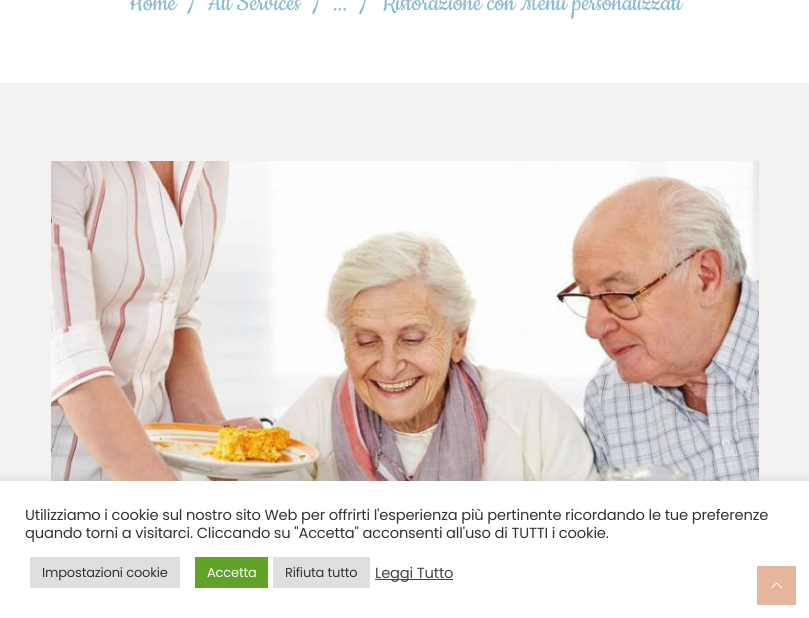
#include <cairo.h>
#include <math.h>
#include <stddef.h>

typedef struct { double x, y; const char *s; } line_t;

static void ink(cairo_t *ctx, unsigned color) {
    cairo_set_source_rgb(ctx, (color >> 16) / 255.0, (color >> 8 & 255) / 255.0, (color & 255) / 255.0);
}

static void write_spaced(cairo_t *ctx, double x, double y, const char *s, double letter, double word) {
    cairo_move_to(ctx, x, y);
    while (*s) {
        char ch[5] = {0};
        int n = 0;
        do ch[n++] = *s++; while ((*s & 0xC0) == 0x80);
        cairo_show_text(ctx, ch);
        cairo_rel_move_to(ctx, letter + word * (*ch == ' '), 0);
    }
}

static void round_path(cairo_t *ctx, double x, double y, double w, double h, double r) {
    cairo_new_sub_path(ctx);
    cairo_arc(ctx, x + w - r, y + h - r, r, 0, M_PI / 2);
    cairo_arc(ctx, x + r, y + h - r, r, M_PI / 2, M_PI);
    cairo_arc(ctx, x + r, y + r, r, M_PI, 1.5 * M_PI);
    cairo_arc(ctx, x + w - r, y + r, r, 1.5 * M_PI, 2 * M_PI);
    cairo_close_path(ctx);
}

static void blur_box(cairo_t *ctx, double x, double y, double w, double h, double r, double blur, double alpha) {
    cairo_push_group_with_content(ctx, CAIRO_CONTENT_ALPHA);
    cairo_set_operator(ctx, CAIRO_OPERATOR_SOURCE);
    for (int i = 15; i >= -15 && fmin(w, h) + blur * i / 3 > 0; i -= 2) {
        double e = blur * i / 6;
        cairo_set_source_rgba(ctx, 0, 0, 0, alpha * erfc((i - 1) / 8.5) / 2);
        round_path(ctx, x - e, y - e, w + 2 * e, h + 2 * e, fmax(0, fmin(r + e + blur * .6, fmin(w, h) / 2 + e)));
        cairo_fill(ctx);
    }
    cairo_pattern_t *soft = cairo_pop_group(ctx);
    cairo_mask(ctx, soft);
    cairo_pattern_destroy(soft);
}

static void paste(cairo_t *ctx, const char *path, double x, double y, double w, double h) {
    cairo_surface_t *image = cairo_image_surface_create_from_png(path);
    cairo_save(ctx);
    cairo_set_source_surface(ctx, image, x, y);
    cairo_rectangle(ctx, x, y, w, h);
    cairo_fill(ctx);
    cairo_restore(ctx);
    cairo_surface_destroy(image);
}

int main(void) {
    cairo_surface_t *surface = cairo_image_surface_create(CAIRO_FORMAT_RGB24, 809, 618);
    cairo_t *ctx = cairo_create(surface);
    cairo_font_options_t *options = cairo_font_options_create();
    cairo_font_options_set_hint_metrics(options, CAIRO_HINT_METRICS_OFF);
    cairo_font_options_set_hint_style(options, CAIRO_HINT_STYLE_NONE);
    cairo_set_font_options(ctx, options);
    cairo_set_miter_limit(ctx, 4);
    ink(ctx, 0xF3F2F0);
    cairo_paint(ctx);
    ink(ctx, 0xFFFFFF);
    cairo_rectangle(ctx, 0, 0, 809, 83);
    cairo_fill(ctx);
    cairo_select_font_face(ctx, "Cookie", CAIRO_FONT_SLANT_NORMAL, CAIRO_FONT_WEIGHT_NORMAL);
    cairo_set_font_size(ctx, 27.9);
    ink(ctx, 0x8DBCD2);
    {
        static const line_t items[] = {
            {128, 10, "Home"},
            {188, 10, "/"},
            {208, 10, "All Services"},
            {313, 10, "/"},
            {333, 10, "..."},
            {360, 10, "/"},
            {380, 10, "Ristorazione con Menù personalizzati"},
        };
        for (size_t i = 0; i < sizeof items / sizeof *items; i++) {
            write_spaced(ctx, items[i].x, items[i].y, items[i].s, -0.17, 0);
        }
    }
    paste(ctx, "media/1.png", 51, 161, 708, 320);
    ink(ctx, 0xACABAB);
    blur_box(ctx, 0, 480, 809, 137, 0, 5, 0.3);
    ink(ctx, 0xFFFFFF);
    cairo_rectangle(ctx, 0, 481, 809, 137);
    cairo_fill(ctx);
    cairo_select_font_face(ctx, "Poppins", CAIRO_FONT_SLANT_NORMAL, CAIRO_FONT_WEIGHT_NORMAL);
    cairo_set_font_size(ctx, 14.67);
    ink(ctx, 0x333333);
    write_spaced(ctx, 25, 520, "Utilizziamo i cookie sul nostro sito Web per offrirti l'esperienza più pertinente ricordando le tue preferenze", -0.17, 0);
    write_spaced(ctx, 25, 538, "quando torni a visitarci. Cliccando su \"Accetta\" acconsenti all'uso di TUTTI i cookie.", -0.17, 0);
    ink(ctx, 0xDEDFE0);
    cairo_rectangle(ctx, 30, 557, 150, 31);
    cairo_fill(ctx);
    cairo_set_font_size(ctx, 13);
    ink(ctx, 0x333333);
    write_spaced(ctx, 42, 577, "Impostazioni cookie", -0.17, 0);
    ink(ctx, 0x61A229);
    cairo_rectangle(ctx, 195, 557, 73, 31);
    cairo_fill(ctx);
    ink(ctx, 0xFFFFFF);
    write_spaced(ctx, 207, 577, "Accetta", -0.17, 0);
    ink(ctx, 0xDEDFE0);
    cairo_rectangle(ctx, 273, 557, 97, 31);
    cairo_fill(ctx);
    ink(ctx, 0x333333);
    write_spaced(ctx, 285, 577, "Rifiuta tutto", -0.17, 0);
    ink(ctx, 0x444444);
    cairo_rectangle(ctx, 375, 579, 78, 1);
    cairo_fill(ctx);
    cairo_set_font_size(ctx, 14.67);
    write_spaced(ctx, 375, 578, "Leggi Tutto", -0.17, 0);
    ink(ctx, 0xE6B59E);
    cairo_rectangle(ctx, 757, 566, 39, 39);
    cairo_fill(ctx);
    paste(ctx, "media/2.png", 771, 582, 12, 7);
    cairo_surface_write_to_png(surface, "image.png");
    cairo_font_options_destroy(options);
    cairo_destroy(ctx);
    cairo_surface_destroy(surface);
    return 0;
}
